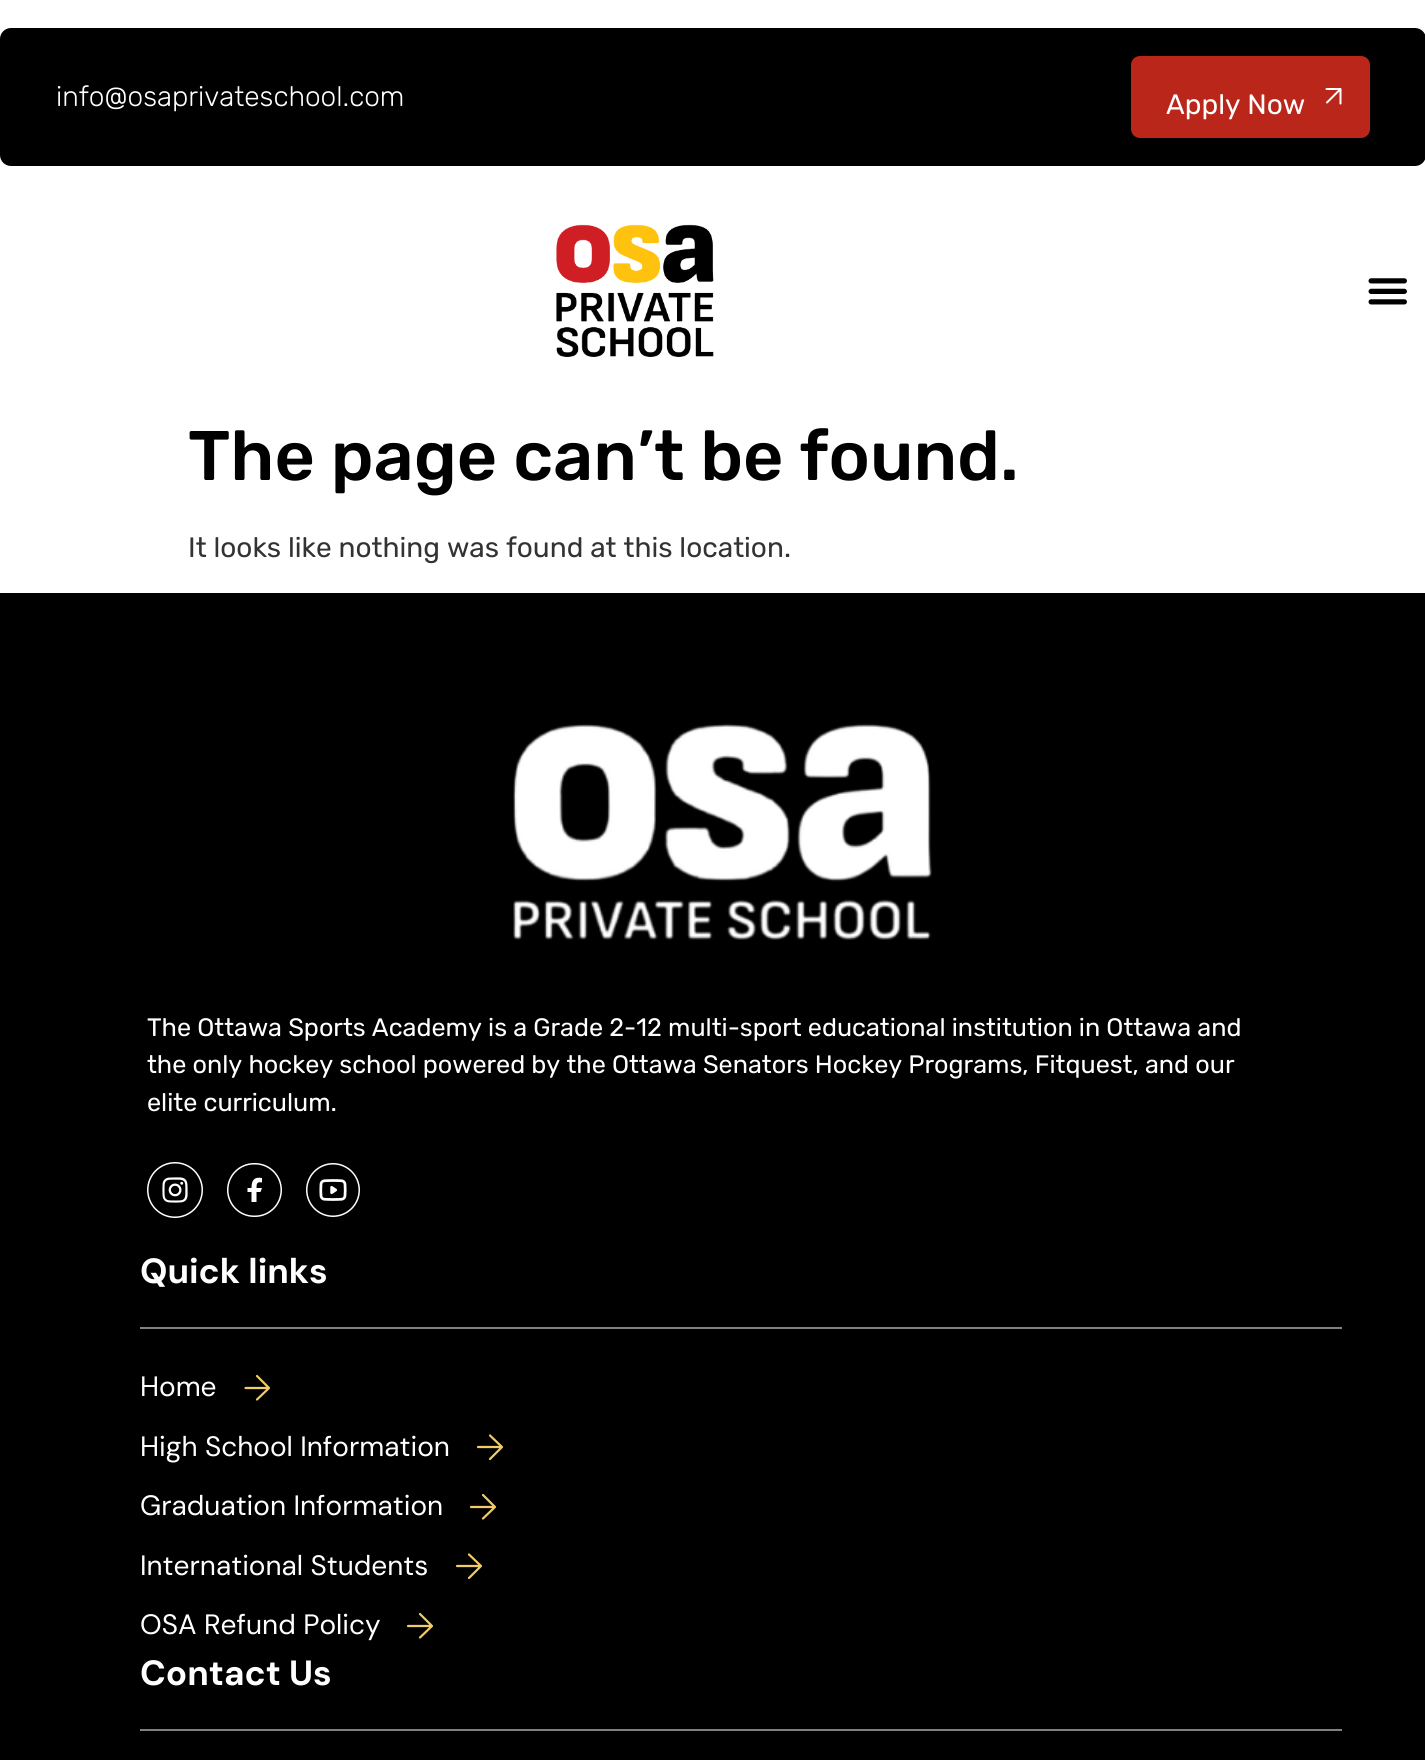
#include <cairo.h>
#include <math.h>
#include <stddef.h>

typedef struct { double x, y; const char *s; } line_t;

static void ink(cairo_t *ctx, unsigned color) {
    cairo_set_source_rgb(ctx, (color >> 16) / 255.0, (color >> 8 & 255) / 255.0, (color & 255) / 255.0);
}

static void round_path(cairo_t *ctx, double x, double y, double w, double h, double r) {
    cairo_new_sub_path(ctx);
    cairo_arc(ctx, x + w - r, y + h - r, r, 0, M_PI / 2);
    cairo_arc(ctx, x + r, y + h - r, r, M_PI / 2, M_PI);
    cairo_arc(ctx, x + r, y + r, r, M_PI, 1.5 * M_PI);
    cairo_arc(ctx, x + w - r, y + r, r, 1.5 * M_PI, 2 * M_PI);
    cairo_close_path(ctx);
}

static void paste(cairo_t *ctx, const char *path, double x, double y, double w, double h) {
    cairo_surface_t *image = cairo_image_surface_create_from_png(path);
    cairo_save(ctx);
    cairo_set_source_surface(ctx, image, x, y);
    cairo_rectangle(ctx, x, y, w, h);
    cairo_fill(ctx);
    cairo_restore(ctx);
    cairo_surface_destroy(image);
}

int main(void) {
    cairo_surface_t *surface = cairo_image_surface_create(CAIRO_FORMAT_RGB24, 1425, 1760);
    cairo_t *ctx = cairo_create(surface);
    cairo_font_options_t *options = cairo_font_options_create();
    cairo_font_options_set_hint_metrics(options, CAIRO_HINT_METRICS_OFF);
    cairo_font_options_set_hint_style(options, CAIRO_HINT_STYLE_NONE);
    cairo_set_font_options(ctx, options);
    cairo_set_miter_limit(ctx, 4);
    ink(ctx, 0xFFFFFF);
    cairo_paint(ctx);
    ink(ctx, 0x000000);
    round_path(ctx, 0, 28, 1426, 138, 11);
    cairo_fill(ctx);
    cairo_select_font_face(ctx, "Rubik Light", CAIRO_FONT_SLANT_NORMAL, CAIRO_FONT_WEIGHT_NORMAL);
    cairo_set_font_size(ctx, 28);
    ink(ctx, 0xFFFFFF);
    cairo_move_to(ctx, 56, 106);
    cairo_show_text(ctx, "info@osaprivateschool.com");
    ink(ctx, 0xBA271A);
    round_path(ctx, 1131, 56, 239, 82, 9);
    cairo_fill(ctx);
    cairo_select_font_face(ctx, "Rubik", CAIRO_FONT_SLANT_NORMAL, CAIRO_FONT_WEIGHT_NORMAL);
    ink(ctx, 0xFFFFFF);
    cairo_move_to(ctx, 1166, 114);
    cairo_show_text(ctx, "Apply Now");
    cairo_new_path(ctx);
    cairo_move_to(ctx, 1327, 102.5);
    cairo_line_to(ctx, 1340.5, 89);
    cairo_move_to(ctx, 1340.5, 103.5);
    cairo_line_to(ctx, 1340.5, 89);
    cairo_line_to(ctx, 1326.5, 89);
    cairo_set_line_cap(ctx, CAIRO_LINE_CAP_ROUND);
    cairo_set_line_join(ctx, CAIRO_LINE_JOIN_ROUND);
    cairo_stroke(ctx);
    paste(ctx, "media/1.png", 556, 224, 158, 133);
    paste(ctx, "media/2.png", 1368, 278, 39, 27);
    cairo_select_font_face(ctx, "Rubik Medium", CAIRO_FONT_SLANT_NORMAL, CAIRO_FONT_WEIGHT_NORMAL);
    cairo_set_font_size(ctx, 70);
    ink(ctx, 0x000000);
    cairo_move_to(ctx, 188, 480);
    cairo_show_text(ctx, "The page can’t be found.");
    cairo_select_font_face(ctx, "Rubik", CAIRO_FONT_SLANT_NORMAL, CAIRO_FONT_WEIGHT_NORMAL);
    cairo_set_font_size(ctx, 28);
    ink(ctx, 0x333333);
    cairo_move_to(ctx, 188, 557);
    cairo_show_text(ctx, "It looks like nothing was found at this location.");
    ink(ctx, 0x000000);
    cairo_rectangle(ctx, 0, 593, 1425, 1167);
    cairo_fill(ctx);
    paste(ctx, "media/3.png", 513, 723, 419, 217);
    cairo_set_font_size(ctx, 25.2);
    ink(ctx, 0xFFFFFF);
    {
        static const line_t items[] = {
            {147, 1036, "The Ottawa Sports Academy is a Grade 2-12 multi-sport educational institution in Ottawa and"},
            {147, 1073, "the only hockey school powered by the Ottawa Senators Hockey Programs, Fitquest, and our"},
            {147, 1111, "elite curriculum."},
        };
        for (size_t i = 0; i < sizeof items / sizeof *items; i++) {
            cairo_move_to(ctx, items[i].x, items[i].y);
            cairo_show_text(ctx, items[i].s);
        }
    }
    paste(ctx, "media/4.png", 147, 1162, 56, 56);
    round_path(ctx, 227.75, 1163.75, 53.5, 52.5, 26.25);
    cairo_set_line_width(ctx, 1.5);
    cairo_set_line_cap(ctx, CAIRO_LINE_CAP_BUTT);
    cairo_set_line_join(ctx, CAIRO_LINE_JOIN_MITER);
    cairo_stroke(ctx);
    cairo_new_path(ctx);
    cairo_move_to(ctx, 256.5, 1192);
    cairo_line_to(ctx, 256.5, 1202);
    cairo_line_to(ctx, 251.5, 1202);
    cairo_line_to(ctx, 251.5, 1192);
    cairo_line_to(ctx, 247.5, 1192);
    cairo_line_to(ctx, 247.5, 1188);
    cairo_line_to(ctx, 251.5, 1188);
    cairo_curve_to(ctx, 251.5, 1180.5, 254, 1176.5, 262, 1178);
    cairo_line_to(ctx, 262, 1182.5);
    cairo_curve_to(ctx, 257, 1181.5, 256.5, 1183.5, 256.5, 1188);
    cairo_line_to(ctx, 262, 1188);
    cairo_line_to(ctx, 260.5, 1192);
    cairo_close_path(ctx);
    cairo_fill(ctx);
    paste(ctx, "media/5.png", 306, 1163, 54, 54);
    cairo_select_font_face(ctx, "DM Sans", CAIRO_FONT_SLANT_NORMAL, CAIRO_FONT_WEIGHT_BOLD);
    cairo_set_font_size(ctx, 35);
    cairo_move_to(ctx, 140, 1283);
    cairo_show_text(ctx, "Quick links");
    ink(ctx, 0x808080);
    cairo_rectangle(ctx, 140, 1327, 1202, 2);
    cairo_fill(ctx);
    cairo_select_font_face(ctx, "DM Sans", CAIRO_FONT_SLANT_NORMAL, CAIRO_FONT_WEIGHT_NORMAL);
    cairo_set_font_size(ctx, 28);
    ink(ctx, 0xFFFFFF);
    cairo_move_to(ctx, 140, 1396);
    cairo_show_text(ctx, "Home");
    cairo_new_path(ctx);
    cairo_move_to(ctx, 245.5, 1388);
    cairo_line_to(ctx, 269, 1388);
    cairo_move_to(ctx, 269, 1388);
    cairo_line_to(ctx, 257, 1399.5);
    cairo_move_to(ctx, 269, 1388);
    cairo_line_to(ctx, 257, 1376);
    ink(ctx, 0xF0CD69);
    cairo_set_line_width(ctx, 2.2);
    cairo_set_line_cap(ctx, CAIRO_LINE_CAP_ROUND);
    cairo_set_line_join(ctx, CAIRO_LINE_JOIN_ROUND);
    cairo_stroke(ctx);
    ink(ctx, 0xFFFFFF);
    cairo_move_to(ctx, 140, 1456);
    cairo_show_text(ctx, "High School Information");
    cairo_new_path(ctx);
    cairo_move_to(ctx, 478, 1447);
    cairo_line_to(ctx, 502, 1447);
    cairo_move_to(ctx, 502, 1447);
    cairo_line_to(ctx, 490, 1459);
    cairo_move_to(ctx, 502, 1447);
    cairo_line_to(ctx, 490, 1435.5);
    ink(ctx, 0xF0CD69);
    cairo_stroke(ctx);
    ink(ctx, 0xFFFFFF);
    cairo_move_to(ctx, 140, 1515);
    cairo_show_text(ctx, "Graduation Information");
    cairo_new_path(ctx);
    cairo_move_to(ctx, 471, 1507);
    cairo_line_to(ctx, 495, 1507);
    cairo_move_to(ctx, 495, 1507);
    cairo_line_to(ctx, 483, 1518.5);
    cairo_move_to(ctx, 495, 1507);
    cairo_line_to(ctx, 483, 1495);
    ink(ctx, 0xF0CD69);
    cairo_stroke(ctx);
    ink(ctx, 0xFFFFFF);
    cairo_move_to(ctx, 140, 1575);
    cairo_show_text(ctx, "International Students");
    cairo_new_path(ctx);
    cairo_move_to(ctx, 457, 1566);
    cairo_line_to(ctx, 481, 1566);
    cairo_move_to(ctx, 481, 1566);
    cairo_line_to(ctx, 469, 1578);
    cairo_move_to(ctx, 481, 1566);
    cairo_line_to(ctx, 469, 1554.5);
    ink(ctx, 0xF0CD69);
    cairo_stroke(ctx);
    ink(ctx, 0xFFFFFF);
    cairo_move_to(ctx, 140, 1634);
    cairo_show_text(ctx, "OSA Refund Policy");
    cairo_new_path(ctx);
    cairo_move_to(ctx, 408, 1626);
    cairo_line_to(ctx, 432, 1626);
    cairo_move_to(ctx, 432, 1626);
    cairo_line_to(ctx, 420, 1637.5);
    cairo_move_to(ctx, 432, 1626);
    cairo_line_to(ctx, 420, 1614);
    ink(ctx, 0xF0CD69);
    cairo_stroke(ctx);
    cairo_select_font_face(ctx, "DM Sans", CAIRO_FONT_SLANT_NORMAL, CAIRO_FONT_WEIGHT_BOLD);
    cairo_set_font_size(ctx, 35);
    ink(ctx, 0xFFFFFF);
    cairo_move_to(ctx, 140, 1685);
    cairo_show_text(ctx, "Contact Us");
    ink(ctx, 0x808080);
    cairo_rectangle(ctx, 140, 1729, 1202, 2);
    cairo_fill(ctx);
    cairo_surface_write_to_png(surface, "image.png");
    cairo_font_options_destroy(options);
    cairo_destroy(ctx);
    cairo_surface_destroy(surface);
    return 0;
}
